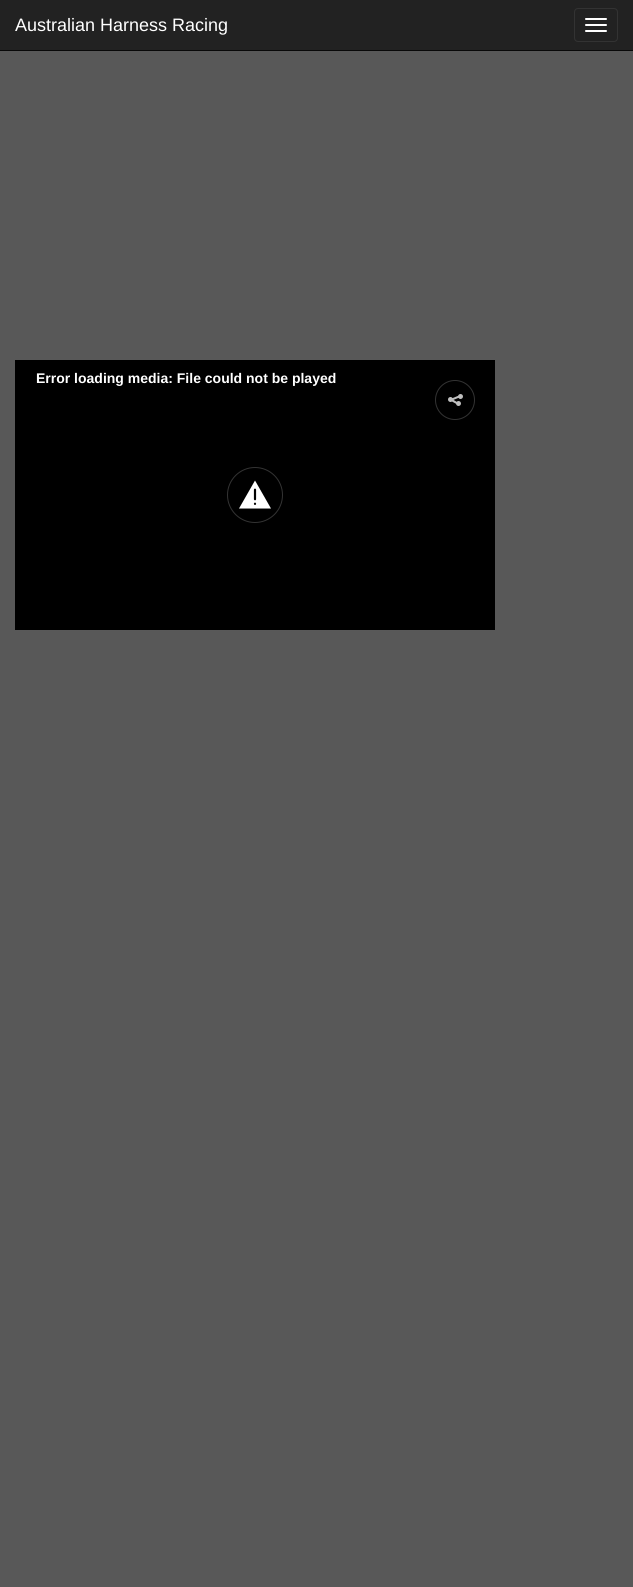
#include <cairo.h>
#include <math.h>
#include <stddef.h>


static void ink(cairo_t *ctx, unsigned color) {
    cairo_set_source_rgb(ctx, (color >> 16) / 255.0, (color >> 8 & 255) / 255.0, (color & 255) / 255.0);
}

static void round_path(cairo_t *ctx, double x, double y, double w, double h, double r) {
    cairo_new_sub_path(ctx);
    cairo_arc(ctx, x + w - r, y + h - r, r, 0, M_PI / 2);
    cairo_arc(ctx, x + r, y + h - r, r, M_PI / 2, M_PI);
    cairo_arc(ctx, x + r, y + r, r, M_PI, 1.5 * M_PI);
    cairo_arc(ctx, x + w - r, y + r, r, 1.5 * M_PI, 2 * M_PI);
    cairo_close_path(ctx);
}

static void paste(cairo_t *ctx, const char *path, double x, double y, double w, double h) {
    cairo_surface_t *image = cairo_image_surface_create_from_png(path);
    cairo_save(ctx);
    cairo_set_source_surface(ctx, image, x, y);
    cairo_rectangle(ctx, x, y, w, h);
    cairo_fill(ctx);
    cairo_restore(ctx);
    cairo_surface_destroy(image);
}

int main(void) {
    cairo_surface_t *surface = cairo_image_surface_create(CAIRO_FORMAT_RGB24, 633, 1587);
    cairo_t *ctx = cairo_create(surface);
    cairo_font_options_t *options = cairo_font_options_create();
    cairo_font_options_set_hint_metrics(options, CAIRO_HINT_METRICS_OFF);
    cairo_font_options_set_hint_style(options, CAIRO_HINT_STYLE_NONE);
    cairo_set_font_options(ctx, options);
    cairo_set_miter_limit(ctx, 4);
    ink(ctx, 0x585858);
    cairo_paint(ctx);
    ink(ctx, 0x222222);
    cairo_rectangle(ctx, 0, 0, 633, 50);
    cairo_fill(ctx);
    ink(ctx, 0x080808);
    cairo_rectangle(ctx, 0, 50, 633, 1);
    cairo_fill(ctx);
    cairo_select_font_face(ctx, "Liberation Sans", CAIRO_FONT_SLANT_NORMAL, CAIRO_FONT_WEIGHT_NORMAL);
    cairo_set_font_size(ctx, 18);
    ink(ctx, 0xFFFFFF);
    cairo_move_to(ctx, 15, 31);
    cairo_show_text(ctx, "Australian Harness Racing");
    round_path(ctx, 574.5, 8.5, 43, 33, 3.5);
    ink(ctx, 0x333333);
    cairo_set_line_width(ctx, 1);
    cairo_stroke(ctx);
    ink(ctx, 0xFFFFFF);
    round_path(ctx, 585, 18, 22, 2, 1);
    cairo_fill(ctx);
    round_path(ctx, 585, 24, 22, 2, 1);
    cairo_fill(ctx);
    round_path(ctx, 585, 30, 22, 2, 1);
    cairo_fill(ctx);
    ink(ctx, 0x000000);
    cairo_rectangle(ctx, 15, 360, 480, 270);
    cairo_fill(ctx);
    cairo_select_font_face(ctx, "Liberation Sans", CAIRO_FONT_SLANT_NORMAL, CAIRO_FONT_WEIGHT_BOLD);
    cairo_set_font_size(ctx, 14);
    ink(ctx, 0xFFFFFF);
    cairo_move_to(ctx, 36, 383);
    cairo_show_text(ctx, "Error loading media: File could not be played");
    cairo_new_path(ctx);
    cairo_arc(ctx, 455, 400, 19.5, 0, 2 * M_PI);
    ink(ctx, 0x333333);
    cairo_stroke(ctx);
    paste(ctx, "media/1.png", 448, 394, 15, 12);
    cairo_arc(ctx, 255, 495, 27.5, 0, 2 * M_PI);
    cairo_stroke(ctx);
    paste(ctx, "media/2.png", 239, 480, 32, 29);
    cairo_surface_write_to_png(surface, "image.png");
    cairo_font_options_destroy(options);
    cairo_destroy(ctx);
    cairo_surface_destroy(surface);
    return 0;
}
